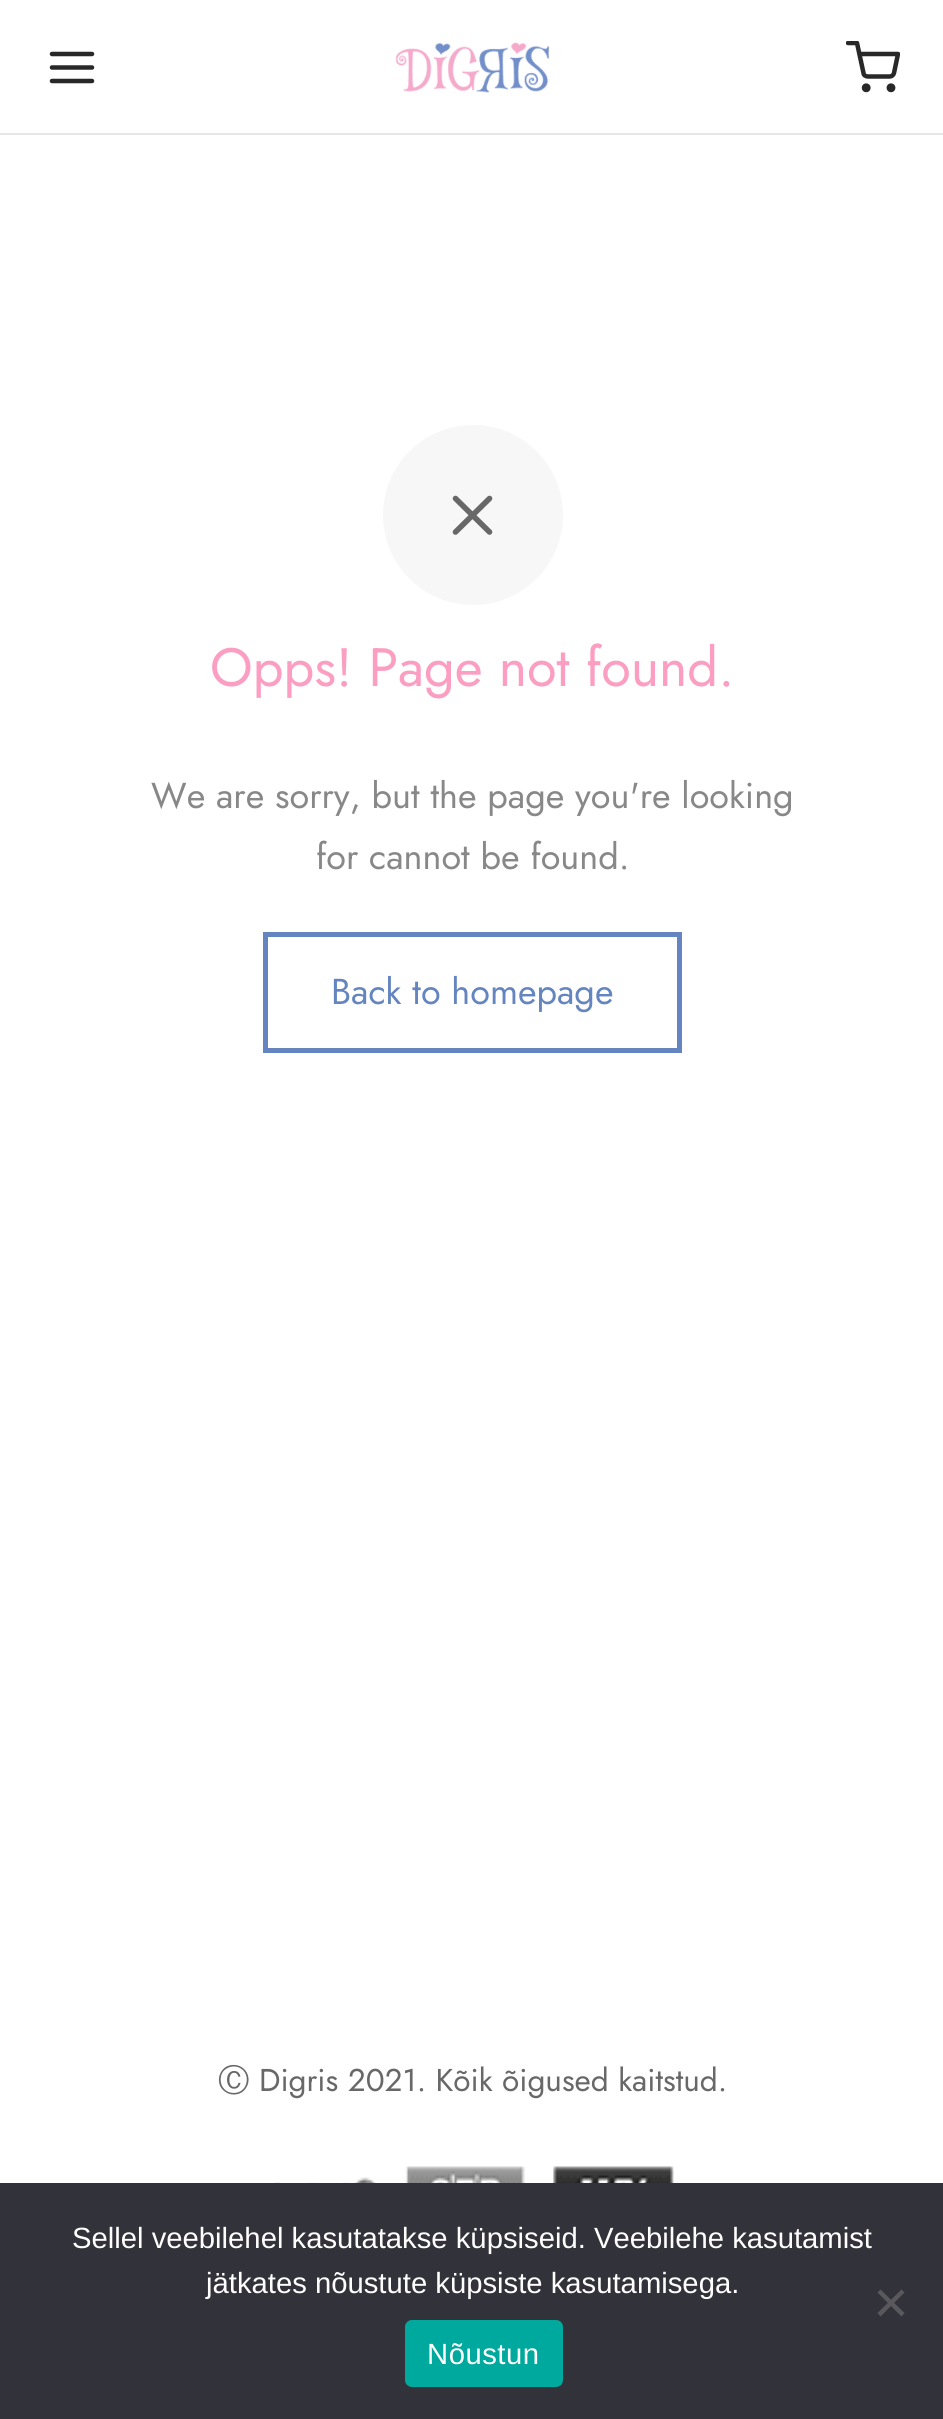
#include <cairo.h>
#include <math.h>
#include <stddef.h>


static void ink(cairo_t *ctx, unsigned color) {
    cairo_set_source_rgb(ctx, (color >> 16) / 255.0, (color >> 8 & 255) / 255.0, (color & 255) / 255.0);
}

static void write_spaced(cairo_t *ctx, double x, double y, const char *s, double letter, double word) {
    cairo_move_to(ctx, x, y);
    while (*s) {
        char ch[5] = {0};
        int n = 0;
        do ch[n++] = *s++; while ((*s & 0xC0) == 0x80);
        cairo_show_text(ctx, ch);
        cairo_rel_move_to(ctx, letter + word * (*ch == ' '), 0);
    }
}

static void round_path(cairo_t *ctx, double x, double y, double w, double h, double r) {
    cairo_new_sub_path(ctx);
    cairo_arc(ctx, x + w - r, y + h - r, r, 0, M_PI / 2);
    cairo_arc(ctx, x + r, y + h - r, r, M_PI / 2, M_PI);
    cairo_arc(ctx, x + r, y + r, r, M_PI, 1.5 * M_PI);
    cairo_arc(ctx, x + w - r, y + r, r, 1.5 * M_PI, 2 * M_PI);
    cairo_close_path(ctx);
}

static void paste(cairo_t *ctx, const char *path, double x, double y, double w, double h) {
    cairo_surface_t *image = cairo_image_surface_create_from_png(path);
    cairo_save(ctx);
    cairo_set_source_surface(ctx, image, x, y);
    cairo_rectangle(ctx, x, y, w, h);
    cairo_fill(ctx);
    cairo_restore(ctx);
    cairo_surface_destroy(image);
}

int main(void) {
    cairo_surface_t *surface = cairo_image_surface_create(CAIRO_FORMAT_RGB24, 943, 2419);
    cairo_t *ctx = cairo_create(surface);
    cairo_font_options_t *options = cairo_font_options_create();
    cairo_font_options_set_hint_metrics(options, CAIRO_HINT_METRICS_OFF);
    cairo_font_options_set_hint_style(options, CAIRO_HINT_STYLE_NONE);
    cairo_set_font_options(ctx, options);
    cairo_set_miter_limit(ctx, 4);
    ink(ctx, 0xFFFFFF);
    cairo_paint(ctx);
    cairo_new_path(ctx);
    cairo_move_to(ctx, 52, 67.5);
    cairo_line_to(ctx, 92, 67.5);
    cairo_move_to(ctx, 52, 54);
    cairo_line_to(ctx, 92, 54);
    cairo_move_to(ctx, 52, 81);
    cairo_line_to(ctx, 92, 81);
    ink(ctx, 0x282828);
    cairo_set_line_width(ctx, 4.5);
    cairo_set_line_cap(ctx, CAIRO_LINE_CAP_ROUND);
    cairo_set_line_join(ctx, CAIRO_LINE_JOIN_ROUND);
    cairo_stroke(ctx);
    paste(ctx, "media/1.png", 395, 42, 155, 51);
    cairo_arc(ctx, 866.2, 87.8, 2.2, 0, 2 * M_PI);
    cairo_set_line_cap(ctx, CAIRO_LINE_CAP_BUTT);
    cairo_set_line_join(ctx, CAIRO_LINE_JOIN_MITER);
    cairo_stroke(ctx);
    cairo_arc(ctx, 891, 87.8, 2.2, 0, 2 * M_PI);
    cairo_stroke(ctx);
    cairo_save(ctx);
    cairo_rectangle(ctx, 846, 41, 54, 54);
    cairo_clip(ctx);
    cairo_new_path(ctx);
    cairo_move_to(ctx, 848, 43);
    cairo_line_to(ctx, 857, 43);
    cairo_line_to(ctx, 863.5, 73);
    cairo_curve_to(ctx, 863.5, 75, 865.5, 76.5, 868, 76.5);
    cairo_line_to(ctx, 889.5, 76.5);
    cairo_curve_to(ctx, 892, 76.5, 893.5, 75, 894, 73);
    cairo_line_to(ctx, 898, 54);
    cairo_line_to(ctx, 859.5, 54);
    cairo_set_line_cap(ctx, CAIRO_LINE_CAP_ROUND);
    cairo_set_line_join(ctx, CAIRO_LINE_JOIN_ROUND);
    cairo_stroke(ctx);
    cairo_restore(ctx);
    ink(ctx, 0xE6E6E6);
    cairo_rectangle(ctx, 0, 133, 943, 2);
    cairo_fill(ctx);
    ink(ctx, 0xF7F7F7);
    cairo_arc(ctx, 473, 515, 90, 0, 2 * M_PI);
    cairo_fill(ctx);
    cairo_new_path(ctx);
    cairo_move_to(ctx, 489.5, 498.5);
    cairo_line_to(ctx, 455.5, 532);
    cairo_move_to(ctx, 455.5, 498.5);
    cairo_line_to(ctx, 489.5, 532);
    ink(ctx, 0x686868);
    cairo_set_line_width(ctx, 5.6);
    cairo_set_line_cap(ctx, CAIRO_LINE_CAP_ROUND);
    cairo_set_line_join(ctx, CAIRO_LINE_JOIN_ROUND);
    cairo_stroke(ctx);
    cairo_select_font_face(ctx, "Jost", CAIRO_FONT_SLANT_NORMAL, CAIRO_FONT_WEIGHT_NORMAL);
    cairo_set_font_size(ctx, 54);
    ink(ctx, 0xFB9EC2);
    cairo_move_to(ctx, 210, 686);
    cairo_show_text(ctx, "Opps! Page not found.");
    cairo_set_font_size(ctx, 36);
    ink(ctx, 0x888888);
    cairo_move_to(ctx, 151, 808);
    cairo_show_text(ctx, "We are sorry, but the page you're looking");
    cairo_move_to(ctx, 316, 869);
    cairo_show_text(ctx, "for cannot be found.");
    cairo_rectangle(ctx, 265.5, 934.5, 414, 116);
    ink(ctx, 0x6485BF);
    cairo_set_line_width(ctx, 5);
    cairo_set_line_cap(ctx, CAIRO_LINE_CAP_BUTT);
    cairo_set_line_join(ctx, CAIRO_LINE_JOIN_MITER);
    cairo_stroke(ctx);
    cairo_move_to(ctx, 331, 1004);
    cairo_show_text(ctx, "Back to homepage");
    cairo_select_font_face(ctx, "WenQuanYi Zen Hei Medium", CAIRO_FONT_SLANT_NORMAL, CAIRO_FONT_WEIGHT_NORMAL);
    cairo_set_font_size(ctx, 31.5);
    ink(ctx, 0x686868);
    cairo_move_to(ctx, 218, 2091);
    cairo_show_text(ctx, "Ⓒ");
    cairo_select_font_face(ctx, "Jost", CAIRO_FONT_SLANT_NORMAL, CAIRO_FONT_WEIGHT_NORMAL);
    cairo_move_to(ctx, 259, 2091);
    cairo_show_text(ctx, "Digris 2021. Kõik õigused kaitstud.");
    paste(ctx, "media/2.png", 271, 2166, 403, 17);
    ink(ctx, 0x32323A);
    cairo_rectangle(ctx, 0, 2183, 943, 236);
    cairo_fill(ctx);
    cairo_select_font_face(ctx, "Liberation Sans", CAIRO_FONT_SLANT_NORMAL, CAIRO_FONT_WEIGHT_NORMAL);
    cairo_set_font_size(ctx, 29.25);
    ink(ctx, 0xFFFFFF);
    cairo_move_to(ctx, 72, 2248);
    cairo_show_text(ctx, "Sellel veebilehel kasutatakse küpsiseid. Veebilehe kasutamist");
    cairo_move_to(ctx, 206, 2293);
    cairo_show_text(ctx, "jätkates nõustute küpsiste kasutamisega.");
    ink(ctx, 0x59595D);
    cairo_new_path(ctx);
    cairo_move_to(ctx, 901.5, 2289.5);
    cairo_line_to(ctx, 904.5, 2292.5);
    cairo_line_to(ctx, 880.5, 2316.5);
    cairo_line_to(ctx, 877.5, 2313);
    cairo_close_path(ctx);
    cairo_fill(ctx);
    cairo_new_path(ctx);
    cairo_move_to(ctx, 877.5, 2292.5);
    cairo_line_to(ctx, 880.5, 2289.5);
    cairo_line_to(ctx, 904.5, 2313);
    cairo_line_to(ctx, 901.5, 2316.5);
    cairo_close_path(ctx);
    cairo_fill(ctx);
    ink(ctx, 0x00A99D);
    round_path(ctx, 405, 2320, 158, 67, 7);
    cairo_fill(ctx);
    ink(ctx, 0xFFFFFF);
    write_spaced(ctx, 427, 2364, "Nõustun", 0.5, 0);
    cairo_surface_write_to_png(surface, "image.png");
    cairo_font_options_destroy(options);
    cairo_destroy(ctx);
    cairo_surface_destroy(surface);
    return 0;
}
